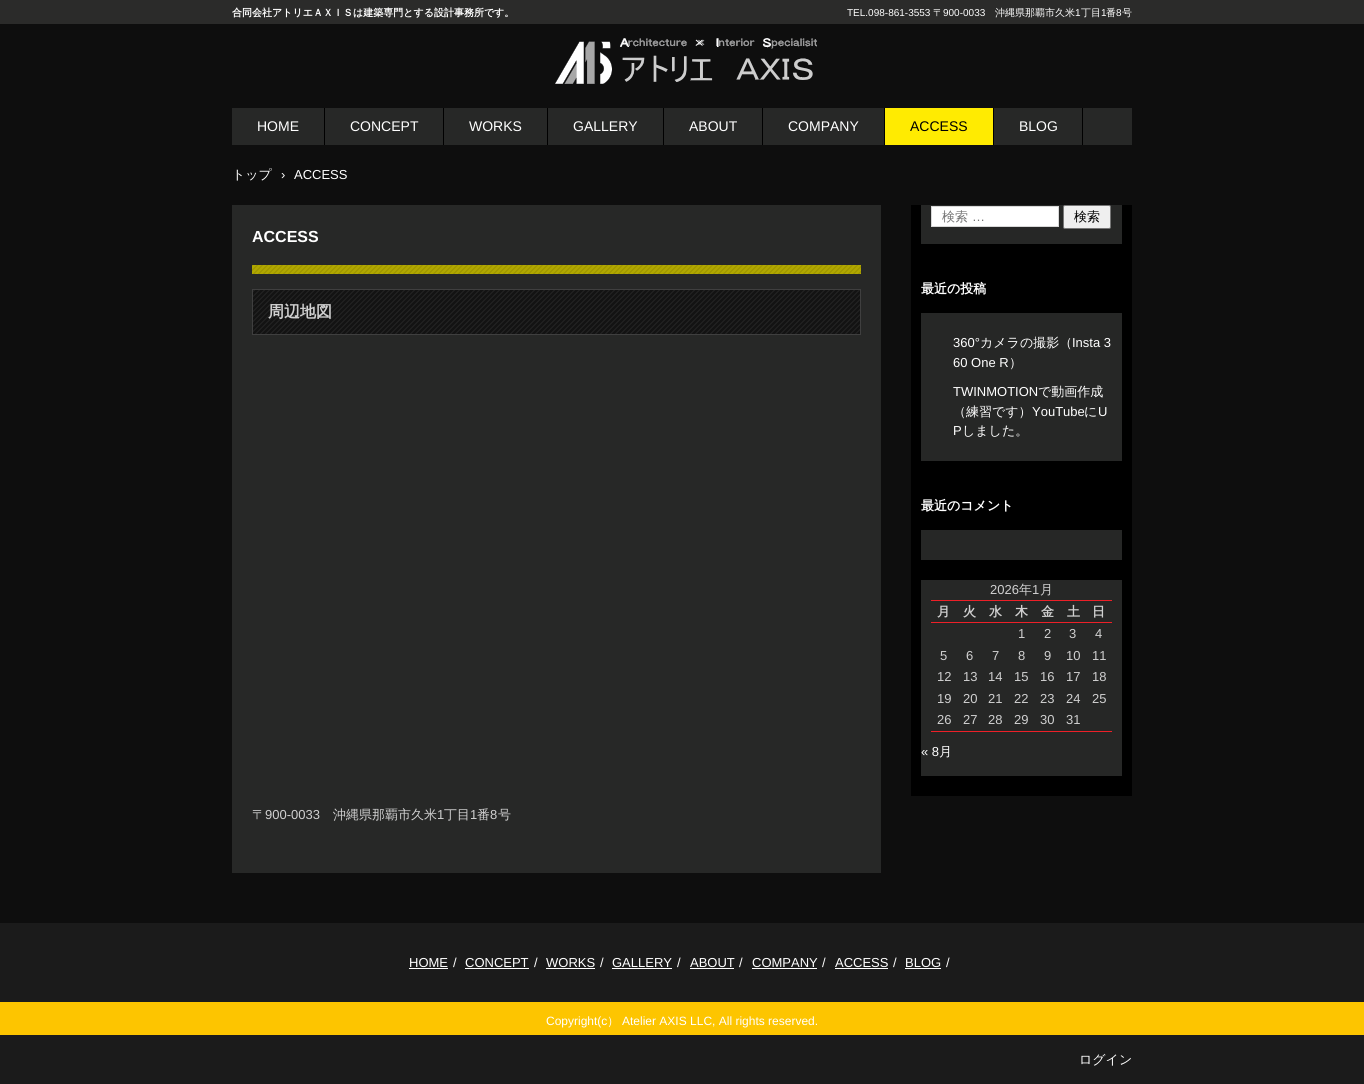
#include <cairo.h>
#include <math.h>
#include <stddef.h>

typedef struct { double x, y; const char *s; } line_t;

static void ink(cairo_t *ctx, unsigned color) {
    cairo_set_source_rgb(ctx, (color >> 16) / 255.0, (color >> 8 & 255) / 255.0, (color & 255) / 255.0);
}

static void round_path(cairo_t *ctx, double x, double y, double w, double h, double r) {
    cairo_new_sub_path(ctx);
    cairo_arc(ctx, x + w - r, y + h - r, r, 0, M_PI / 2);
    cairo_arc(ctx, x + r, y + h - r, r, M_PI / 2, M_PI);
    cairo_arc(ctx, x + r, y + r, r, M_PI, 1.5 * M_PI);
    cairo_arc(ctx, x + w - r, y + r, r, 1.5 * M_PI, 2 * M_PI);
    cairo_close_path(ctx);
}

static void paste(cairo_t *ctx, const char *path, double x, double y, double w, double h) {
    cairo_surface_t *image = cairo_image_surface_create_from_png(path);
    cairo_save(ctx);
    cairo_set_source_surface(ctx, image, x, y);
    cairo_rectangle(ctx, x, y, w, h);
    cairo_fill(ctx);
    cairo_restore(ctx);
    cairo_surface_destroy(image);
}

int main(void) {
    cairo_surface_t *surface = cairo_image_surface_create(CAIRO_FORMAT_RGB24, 1364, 1084);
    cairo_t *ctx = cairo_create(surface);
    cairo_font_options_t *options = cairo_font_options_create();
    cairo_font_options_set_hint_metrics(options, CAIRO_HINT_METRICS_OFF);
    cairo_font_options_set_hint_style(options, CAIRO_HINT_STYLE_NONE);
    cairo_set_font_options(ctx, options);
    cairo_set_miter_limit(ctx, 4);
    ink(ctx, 0x0E0E0E);
    cairo_paint(ctx);
    ink(ctx, 0x2B2B2A);
    cairo_rectangle(ctx, 0, 0, 1364, 24);
    cairo_fill(ctx);
    cairo_select_font_face(ctx, "WenQuanYi Zen Hei", CAIRO_FONT_SLANT_NORMAL, CAIRO_FONT_WEIGHT_BOLD);
    cairo_set_font_size(ctx, 10);
    ink(ctx, 0xFFFFFF);
    cairo_move_to(ctx, 232, 16);
    cairo_show_text(ctx, "合同会社アトリエＡＸＩＳは建築専門とする設計事務所です。");
    paste(ctx, "media/1.png", 555, 38, 262, 46);
    cairo_select_font_face(ctx, "Liberation Sans", CAIRO_FONT_SLANT_NORMAL, CAIRO_FONT_WEIGHT_NORMAL);
    cairo_move_to(ctx, 847, 16);
    cairo_show_text(ctx, "TEL.098-861-3553");
    cairo_select_font_face(ctx, "WenQuanYi Zen Hei Medium", CAIRO_FONT_SLANT_NORMAL, CAIRO_FONT_WEIGHT_NORMAL);
    cairo_move_to(ctx, 933, 16);
    cairo_show_text(ctx, "〒");
    cairo_select_font_face(ctx, "Liberation Sans", CAIRO_FONT_SLANT_NORMAL, CAIRO_FONT_WEIGHT_NORMAL);
    cairo_move_to(ctx, 943, 16);
    cairo_show_text(ctx, "900-0033");
    cairo_select_font_face(ctx, "WenQuanYi Zen Hei Medium", CAIRO_FONT_SLANT_NORMAL, CAIRO_FONT_WEIGHT_NORMAL);
    cairo_move_to(ctx, 995, 16);
    cairo_show_text(ctx, "沖縄県那覇市久米");
    cairo_select_font_face(ctx, "Liberation Sans", CAIRO_FONT_SLANT_NORMAL, CAIRO_FONT_WEIGHT_NORMAL);
    cairo_move_to(ctx, 1075, 16);
    cairo_show_text(ctx, "1");
    cairo_select_font_face(ctx, "WenQuanYi Zen Hei Medium", CAIRO_FONT_SLANT_NORMAL, CAIRO_FONT_WEIGHT_NORMAL);
    cairo_move_to(ctx, 1081, 16);
    cairo_show_text(ctx, "丁目");
    cairo_select_font_face(ctx, "Liberation Sans", CAIRO_FONT_SLANT_NORMAL, CAIRO_FONT_WEIGHT_NORMAL);
    cairo_move_to(ctx, 1101, 16);
    cairo_show_text(ctx, "1");
    cairo_select_font_face(ctx, "WenQuanYi Zen Hei Medium", CAIRO_FONT_SLANT_NORMAL, CAIRO_FONT_WEIGHT_NORMAL);
    cairo_move_to(ctx, 1106, 16);
    cairo_show_text(ctx, "番");
    cairo_select_font_face(ctx, "Liberation Sans", CAIRO_FONT_SLANT_NORMAL, CAIRO_FONT_WEIGHT_NORMAL);
    cairo_move_to(ctx, 1116, 16);
    cairo_show_text(ctx, "8");
    cairo_select_font_face(ctx, "WenQuanYi Zen Hei Medium", CAIRO_FONT_SLANT_NORMAL, CAIRO_FONT_WEIGHT_NORMAL);
    cairo_move_to(ctx, 1122, 16);
    cairo_show_text(ctx, "号");
    ink(ctx, 0x272827);
    cairo_rectangle(ctx, 232, 108, 900, 37);
    cairo_fill(ctx);
    ink(ctx, 0x000000);
    cairo_rectangle(ctx, 324, 108, 1, 37);
    cairo_fill(ctx);
    cairo_select_font_face(ctx, "Liberation Sans", CAIRO_FONT_SLANT_NORMAL, CAIRO_FONT_WEIGHT_NORMAL);
    cairo_set_font_size(ctx, 14);
    ink(ctx, 0xFFFFFF);
    cairo_move_to(ctx, 257, 131);
    cairo_show_text(ctx, "HOME");
    ink(ctx, 0x000000);
    cairo_rectangle(ctx, 443, 108, 1, 37);
    cairo_fill(ctx);
    ink(ctx, 0xFFFFFF);
    cairo_move_to(ctx, 350, 131);
    cairo_show_text(ctx, "CONCEPT");
    ink(ctx, 0x000000);
    cairo_rectangle(ctx, 547, 108, 1, 37);
    cairo_fill(ctx);
    ink(ctx, 0xFFFFFF);
    cairo_move_to(ctx, 469, 131);
    cairo_show_text(ctx, "WORKS");
    ink(ctx, 0x000000);
    cairo_rectangle(ctx, 663, 108, 1, 37);
    cairo_fill(ctx);
    ink(ctx, 0xFFFFFF);
    cairo_move_to(ctx, 573, 131);
    cairo_show_text(ctx, "GALLERY");
    ink(ctx, 0x000000);
    cairo_rectangle(ctx, 762, 108, 1, 37);
    cairo_fill(ctx);
    ink(ctx, 0xFFFFFF);
    cairo_move_to(ctx, 689, 131);
    cairo_show_text(ctx, "ABOUT");
    ink(ctx, 0x000000);
    cairo_rectangle(ctx, 884, 108, 1, 37);
    cairo_fill(ctx);
    ink(ctx, 0xFFFFFF);
    cairo_move_to(ctx, 788, 131);
    cairo_show_text(ctx, "COMPANY");
    ink(ctx, 0x000000);
    cairo_rectangle(ctx, 993, 108, 1, 37);
    cairo_fill(ctx);
    ink(ctx, 0xFFEB01);
    cairo_rectangle(ctx, 885, 108, 108, 37);
    cairo_fill(ctx);
    ink(ctx, 0x000000);
    cairo_move_to(ctx, 910, 131);
    cairo_show_text(ctx, "ACCESS");
    cairo_rectangle(ctx, 1082, 108, 1, 37);
    cairo_fill(ctx);
    ink(ctx, 0xFFFFFF);
    cairo_move_to(ctx, 1019, 131);
    cairo_show_text(ctx, "BLOG");
    cairo_select_font_face(ctx, "WenQuanYi Zen Hei Medium", CAIRO_FONT_SLANT_NORMAL, CAIRO_FONT_WEIGHT_NORMAL);
    cairo_set_font_size(ctx, 13);
    cairo_move_to(ctx, 232, 179);
    cairo_show_text(ctx, "トップ");
    cairo_select_font_face(ctx, "Liberation Sans", CAIRO_FONT_SLANT_NORMAL, CAIRO_FONT_WEIGHT_NORMAL);
    cairo_move_to(ctx, 281, 179);
    cairo_show_text(ctx, "›");
    cairo_move_to(ctx, 294, 179);
    cairo_show_text(ctx, "ACCESS");
    ink(ctx, 0x272827);
    cairo_rectangle(ctx, 232, 205, 649, 668);
    cairo_fill(ctx);
    paste(ctx, "media/2.png", 252, 265, 609, 9);
    cairo_select_font_face(ctx, "Liberation Sans", CAIRO_FONT_SLANT_NORMAL, CAIRO_FONT_WEIGHT_BOLD);
    cairo_set_font_size(ctx, 16);
    ink(ctx, 0xFFFFFF);
    cairo_move_to(ctx, 252, 242);
    cairo_show_text(ctx, "ACCESS");
    paste(ctx, "media/3.png", 253, 290, 607, 44);
    cairo_rectangle(ctx, 252.5, 289.5, 608, 45);
    ink(ctx, 0x3F3F3F);
    cairo_set_line_width(ctx, 1);
    cairo_stroke(ctx);
    cairo_select_font_face(ctx, "WenQuanYi Zen Hei", CAIRO_FONT_SLANT_NORMAL, CAIRO_FONT_WEIGHT_BOLD);
    ink(ctx, 0xD0D0D0);
    cairo_move_to(ctx, 268, 317);
    cairo_show_text(ctx, "周辺地図");
    cairo_select_font_face(ctx, "WenQuanYi Zen Hei Medium", CAIRO_FONT_SLANT_NORMAL, CAIRO_FONT_WEIGHT_NORMAL);
    cairo_set_font_size(ctx, 13);
    cairo_move_to(ctx, 252, 819);
    cairo_show_text(ctx, "〒");
    cairo_select_font_face(ctx, "Liberation Sans", CAIRO_FONT_SLANT_NORMAL, CAIRO_FONT_WEIGHT_NORMAL);
    cairo_move_to(ctx, 265, 819);
    cairo_show_text(ctx, "900-0033");
    cairo_select_font_face(ctx, "WenQuanYi Zen Hei Medium", CAIRO_FONT_SLANT_NORMAL, CAIRO_FONT_WEIGHT_NORMAL);
    cairo_move_to(ctx, 333, 819);
    cairo_show_text(ctx, "沖縄県那覇市久米");
    cairo_select_font_face(ctx, "Liberation Sans", CAIRO_FONT_SLANT_NORMAL, CAIRO_FONT_WEIGHT_NORMAL);
    cairo_move_to(ctx, 437, 819);
    cairo_show_text(ctx, "1");
    cairo_select_font_face(ctx, "WenQuanYi Zen Hei Medium", CAIRO_FONT_SLANT_NORMAL, CAIRO_FONT_WEIGHT_NORMAL);
    cairo_move_to(ctx, 444, 819);
    cairo_show_text(ctx, "丁目");
    cairo_select_font_face(ctx, "Liberation Sans", CAIRO_FONT_SLANT_NORMAL, CAIRO_FONT_WEIGHT_NORMAL);
    cairo_move_to(ctx, 470, 819);
    cairo_show_text(ctx, "1");
    cairo_select_font_face(ctx, "WenQuanYi Zen Hei Medium", CAIRO_FONT_SLANT_NORMAL, CAIRO_FONT_WEIGHT_NORMAL);
    cairo_move_to(ctx, 477, 819);
    cairo_show_text(ctx, "番");
    cairo_select_font_face(ctx, "Liberation Sans", CAIRO_FONT_SLANT_NORMAL, CAIRO_FONT_WEIGHT_NORMAL);
    cairo_move_to(ctx, 490, 819);
    cairo_show_text(ctx, "8");
    cairo_select_font_face(ctx, "WenQuanYi Zen Hei Medium", CAIRO_FONT_SLANT_NORMAL, CAIRO_FONT_WEIGHT_NORMAL);
    cairo_move_to(ctx, 498, 819);
    cairo_show_text(ctx, "号");
    ink(ctx, 0x000000);
    cairo_rectangle(ctx, 911, 205, 221, 591);
    cairo_fill(ctx);
    ink(ctx, 0x262726);
    cairo_rectangle(ctx, 921, 205, 201, 39);
    cairo_fill(ctx);
    ink(ctx, 0xFFFFFF);
    cairo_rectangle(ctx, 931.5, 206.5, 127, 20);
    cairo_fill_preserve(ctx);
    ink(ctx, 0xD8D8D8);
    cairo_stroke(ctx);
    ink(ctx, 0x757575);
    cairo_move_to(ctx, 942, 221);
    cairo_show_text(ctx, "検索");
    cairo_select_font_face(ctx, "Liberation Sans", CAIRO_FONT_SLANT_NORMAL, CAIRO_FONT_WEIGHT_NORMAL);
    cairo_move_to(ctx, 972, 221);
    cairo_show_text(ctx, "…");
    ink(ctx, 0xEFEFEF);
    round_path(ctx, 1063.5, 205.5, 47, 23, 1.5);
    cairo_fill_preserve(ctx);
    ink(ctx, 0x767676);
    cairo_stroke(ctx);
    cairo_select_font_face(ctx, "WenQuanYi Zen Hei Medium", CAIRO_FONT_SLANT_NORMAL, CAIRO_FONT_WEIGHT_NORMAL);
    ink(ctx, 0x000000);
    cairo_move_to(ctx, 1074, 221);
    cairo_show_text(ctx, "検索");
    ink(ctx, 0x262726);
    cairo_rectangle(ctx, 921, 313, 201, 148);
    cairo_fill(ctx);
    cairo_select_font_face(ctx, "WenQuanYi Zen Hei", CAIRO_FONT_SLANT_NORMAL, CAIRO_FONT_WEIGHT_BOLD);
    ink(ctx, 0xFFFFFF);
    cairo_move_to(ctx, 921, 293);
    cairo_show_text(ctx, "最近の投稿");
    cairo_select_font_face(ctx, "Liberation Sans", CAIRO_FONT_SLANT_NORMAL, CAIRO_FONT_WEIGHT_NORMAL);
    cairo_move_to(ctx, 953, 347);
    cairo_show_text(ctx, "360°");
    cairo_select_font_face(ctx, "WenQuanYi Zen Hei Medium", CAIRO_FONT_SLANT_NORMAL, CAIRO_FONT_WEIGHT_NORMAL);
    cairo_move_to(ctx, 980, 347);
    cairo_show_text(ctx, "カメラの撮影（");
    cairo_select_font_face(ctx, "Liberation Sans", CAIRO_FONT_SLANT_NORMAL, CAIRO_FONT_WEIGHT_NORMAL);
    cairo_move_to(ctx, 1072, 347);
    cairo_show_text(ctx, "Insta 3");
    cairo_move_to(ctx, 953, 367);
    cairo_show_text(ctx, "60 One R");
    cairo_select_font_face(ctx, "WenQuanYi Zen Hei Medium", CAIRO_FONT_SLANT_NORMAL, CAIRO_FONT_WEIGHT_NORMAL);
    cairo_move_to(ctx, 1009, 367);
    cairo_show_text(ctx, "）");
    cairo_select_font_face(ctx, "Liberation Sans", CAIRO_FONT_SLANT_NORMAL, CAIRO_FONT_WEIGHT_NORMAL);
    cairo_move_to(ctx, 953, 396);
    cairo_show_text(ctx, "TWINMOTION");
    cairo_select_font_face(ctx, "WenQuanYi Zen Hei Medium", CAIRO_FONT_SLANT_NORMAL, CAIRO_FONT_WEIGHT_NORMAL);
    cairo_move_to(ctx, 1038, 396);
    cairo_show_text(ctx, "で動画作成");
    cairo_move_to(ctx, 953, 416);
    cairo_show_text(ctx, "（練習です）");
    cairo_select_font_face(ctx, "Liberation Sans", CAIRO_FONT_SLANT_NORMAL, CAIRO_FONT_WEIGHT_NORMAL);
    cairo_move_to(ctx, 1032, 416);
    cairo_show_text(ctx, "YouTube");
    cairo_select_font_face(ctx, "WenQuanYi Zen Hei Medium", CAIRO_FONT_SLANT_NORMAL, CAIRO_FONT_WEIGHT_NORMAL);
    cairo_move_to(ctx, 1084, 416);
    cairo_show_text(ctx, "に");
    cairo_select_font_face(ctx, "Liberation Sans", CAIRO_FONT_SLANT_NORMAL, CAIRO_FONT_WEIGHT_NORMAL);
    cairo_move_to(ctx, 1098, 416);
    cairo_show_text(ctx, "U");
    cairo_move_to(ctx, 953, 435);
    cairo_show_text(ctx, "P");
    cairo_select_font_face(ctx, "WenQuanYi Zen Hei Medium", CAIRO_FONT_SLANT_NORMAL, CAIRO_FONT_WEIGHT_NORMAL);
    cairo_move_to(ctx, 962, 435);
    cairo_show_text(ctx, "しました。");
    ink(ctx, 0x262726);
    cairo_rectangle(ctx, 921, 530, 201, 30);
    cairo_fill(ctx);
    cairo_select_font_face(ctx, "WenQuanYi Zen Hei", CAIRO_FONT_SLANT_NORMAL, CAIRO_FONT_WEIGHT_BOLD);
    ink(ctx, 0xFFFFFF);
    cairo_move_to(ctx, 921, 510);
    cairo_show_text(ctx, "最近のコメント");
    ink(ctx, 0x262726);
    cairo_rectangle(ctx, 921, 580, 201, 196);
    cairo_fill(ctx);
    ink(ctx, 0xED2028);
    cairo_rectangle(ctx, 931, 600, 181, 1);
    cairo_fill(ctx);
    cairo_select_font_face(ctx, "Liberation Sans", CAIRO_FONT_SLANT_NORMAL, CAIRO_FONT_WEIGHT_NORMAL);
    ink(ctx, 0xD0D0D0);
    cairo_move_to(ctx, 990, 594);
    cairo_show_text(ctx, "2026");
    cairo_select_font_face(ctx, "WenQuanYi Zen Hei Medium", CAIRO_FONT_SLANT_NORMAL, CAIRO_FONT_WEIGHT_NORMAL);
    cairo_move_to(ctx, 1019, 594);
    cairo_show_text(ctx, "年");
    cairo_select_font_face(ctx, "Liberation Sans", CAIRO_FONT_SLANT_NORMAL, CAIRO_FONT_WEIGHT_NORMAL);
    cairo_move_to(ctx, 1032, 594);
    cairo_show_text(ctx, "1");
    cairo_select_font_face(ctx, "WenQuanYi Zen Hei Medium", CAIRO_FONT_SLANT_NORMAL, CAIRO_FONT_WEIGHT_NORMAL);
    cairo_move_to(ctx, 1040, 594);
    cairo_show_text(ctx, "月");
    ink(ctx, 0xED2028);
    cairo_rectangle(ctx, 931, 622, 181, 1);
    cairo_fill(ctx);
    cairo_select_font_face(ctx, "WenQuanYi Zen Hei", CAIRO_FONT_SLANT_NORMAL, CAIRO_FONT_WEIGHT_BOLD);
    ink(ctx, 0xD0D0D0);
    {
        static const line_t items[] = {
            {937, 616, "月"},
            {963, 616, "火"},
            {989, 616, "水"},
            {1015, 616, "木"},
            {1041, 616, "金"},
            {1067, 616, "土"},
            {1092, 616, "日"},
        };
        for (size_t i = 0; i < sizeof items / sizeof *items; i++) {
            cairo_move_to(ctx, items[i].x, items[i].y);
            cairo_show_text(ctx, items[i].s);
        }
    }
    ink(ctx, 0xED2028);
    cairo_rectangle(ctx, 931, 731, 181, 1);
    cairo_fill(ctx);
    cairo_select_font_face(ctx, "Liberation Sans", CAIRO_FONT_SLANT_NORMAL, CAIRO_FONT_WEIGHT_NORMAL);
    ink(ctx, 0xD0D0D0);
    {
        static const line_t items[] = {
            {1018, 638, "1"},
            {1044, 638, "2"},
            {1069, 638, "3"},
            {1095, 638, "4"},
            {940, 660, "5"},
            {966, 660, "6"},
            {992, 660, "7"},
            {1018, 660, "8"},
            {1044, 660, "9"},
            {1066, 660, "10"},
            {1092, 660, "11"},
            {937, 681, "12"},
            {963, 681, "13"},
            {988, 681, "14"},
            {1014, 681, "15"},
            {1040, 681, "16"},
            {1066, 681, "17"},
            {1092, 681, "18"},
            {937, 703, "19"},
            {963, 703, "20"},
            {988, 703, "21"},
            {1014, 703, "22"},
            {1040, 703, "23"},
            {1066, 703, "24"},
            {1092, 703, "25"},
            {937, 724, "26"},
            {963, 724, "27"},
            {988, 724, "28"},
            {1014, 724, "29"},
            {1040, 724, "30"},
            {1066, 724, "31"},
        };
        for (size_t i = 0; i < sizeof items / sizeof *items; i++) {
            cairo_move_to(ctx, items[i].x, items[i].y);
            cairo_show_text(ctx, items[i].s);
        }
    }
    ink(ctx, 0xFFFFFF);
    cairo_move_to(ctx, 921, 756);
    cairo_show_text(ctx, "« 8");
    cairo_select_font_face(ctx, "WenQuanYi Zen Hei Medium", CAIRO_FONT_SLANT_NORMAL, CAIRO_FONT_WEIGHT_NORMAL);
    cairo_move_to(ctx, 939, 756);
    cairo_show_text(ctx, "月");
    ink(ctx, 0x1B1B1B);
    cairo_rectangle(ctx, 0, 923, 1364, 161);
    cairo_fill(ctx);
    cairo_select_font_face(ctx, "Liberation Sans", CAIRO_FONT_SLANT_NORMAL, CAIRO_FONT_WEIGHT_NORMAL);
    ink(ctx, 0xFFFFFF);
    cairo_move_to(ctx, 409, 967);
    cairo_show_text(ctx, "HOME");
    cairo_rectangle(ctx, 409, 968, 39, 1);
    cairo_fill(ctx);
    cairo_move_to(ctx, 453, 967);
    cairo_show_text(ctx, "/");
    cairo_move_to(ctx, 465, 967);
    cairo_show_text(ctx, "CONCEPT");
    cairo_rectangle(ctx, 465, 968, 64, 1);
    cairo_fill(ctx);
    cairo_move_to(ctx, 534, 967);
    cairo_show_text(ctx, "/");
    cairo_move_to(ctx, 546, 967);
    cairo_show_text(ctx, "WORKS");
    cairo_rectangle(ctx, 546, 968, 49, 1);
    cairo_fill(ctx);
    cairo_move_to(ctx, 600, 967);
    cairo_show_text(ctx, "/");
    cairo_move_to(ctx, 612, 967);
    cairo_show_text(ctx, "GALLERY");
    cairo_rectangle(ctx, 612, 968, 60, 1);
    cairo_fill(ctx);
    cairo_move_to(ctx, 677, 967);
    cairo_show_text(ctx, "/");
    cairo_move_to(ctx, 690, 967);
    cairo_show_text(ctx, "ABOUT");
    cairo_rectangle(ctx, 690, 968, 44, 1);
    cairo_fill(ctx);
    cairo_move_to(ctx, 739, 967);
    cairo_show_text(ctx, "/");
    cairo_move_to(ctx, 752, 967);
    cairo_show_text(ctx, "COMPANY");
    cairo_rectangle(ctx, 752, 968, 65, 1);
    cairo_fill(ctx);
    cairo_move_to(ctx, 822, 967);
    cairo_show_text(ctx, "/");
    cairo_move_to(ctx, 835, 967);
    cairo_show_text(ctx, "ACCESS");
    cairo_rectangle(ctx, 835, 968, 53, 1);
    cairo_fill(ctx);
    cairo_move_to(ctx, 893, 967);
    cairo_show_text(ctx, "/");
    cairo_move_to(ctx, 905, 967);
    cairo_show_text(ctx, "BLOG");
    cairo_rectangle(ctx, 905, 968, 36, 1);
    cairo_fill(ctx);
    cairo_move_to(ctx, 946, 967);
    cairo_show_text(ctx, "/");
    ink(ctx, 0xFDC500);
    cairo_rectangle(ctx, 0, 1002, 1364, 33);
    cairo_fill(ctx);
    cairo_set_font_size(ctx, 12);
    ink(ctx, 0xFFFFFF);
    cairo_move_to(ctx, 546, 1025);
    cairo_show_text(ctx, "Copyright(c");
    cairo_select_font_face(ctx, "WenQuanYi Zen Hei Medium", CAIRO_FONT_SLANT_NORMAL, CAIRO_FONT_WEIGHT_NORMAL);
    cairo_move_to(ctx, 607, 1025);
    cairo_show_text(ctx, "）");
    cairo_select_font_face(ctx, "Liberation Sans", CAIRO_FONT_SLANT_NORMAL, CAIRO_FONT_WEIGHT_NORMAL);
    cairo_move_to(ctx, 622, 1025);
    cairo_show_text(ctx, "Atelier AXIS LLC, All rights reserved.");
    cairo_select_font_face(ctx, "WenQuanYi Zen Hei Medium", CAIRO_FONT_SLANT_NORMAL, CAIRO_FONT_WEIGHT_NORMAL);
    cairo_set_font_size(ctx, 13);
    cairo_move_to(ctx, 1079, 1064);
    cairo_show_text(ctx, "ログイン");
    cairo_surface_write_to_png(surface, "image.png");
    cairo_font_options_destroy(options);
    cairo_destroy(ctx);
    cairo_surface_destroy(surface);
    return 0;
}
